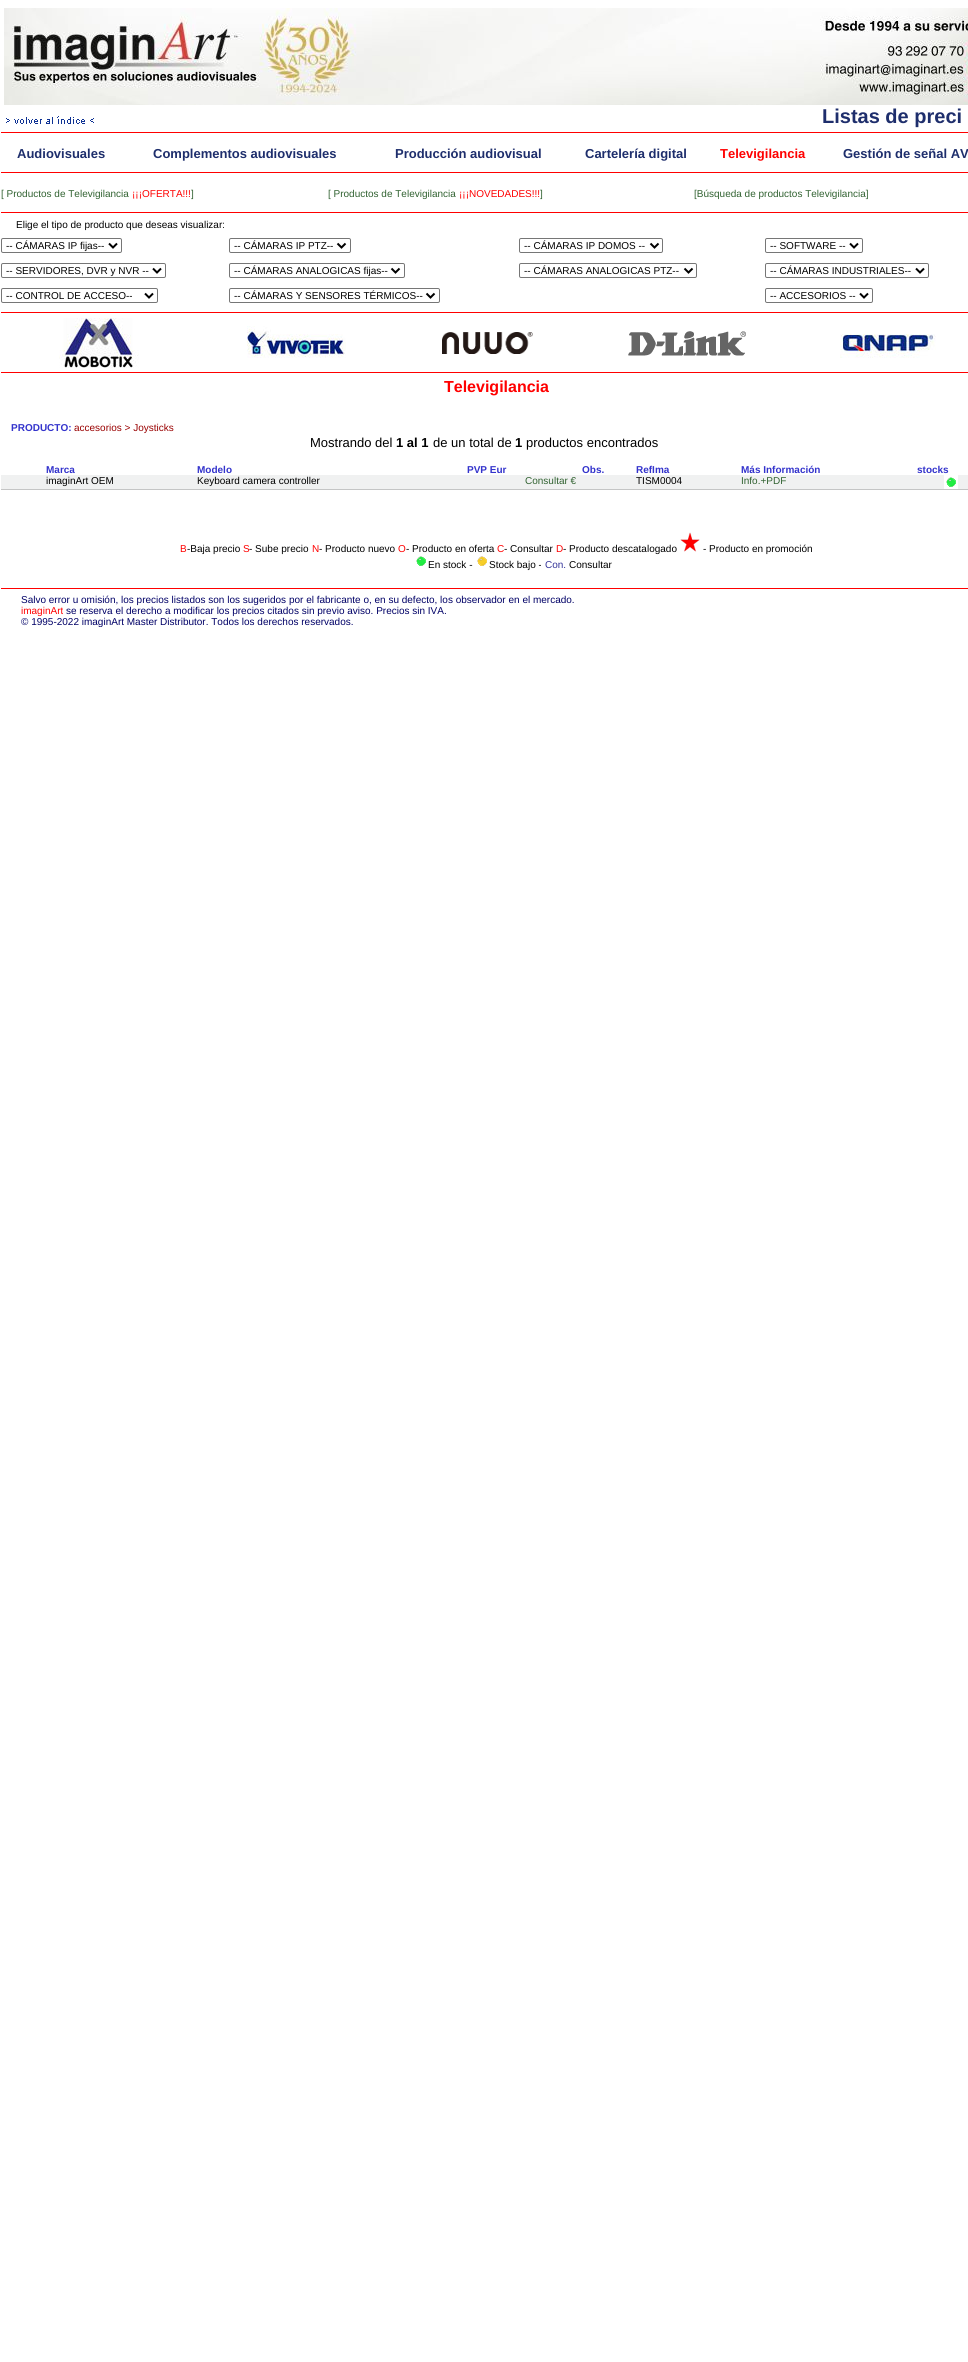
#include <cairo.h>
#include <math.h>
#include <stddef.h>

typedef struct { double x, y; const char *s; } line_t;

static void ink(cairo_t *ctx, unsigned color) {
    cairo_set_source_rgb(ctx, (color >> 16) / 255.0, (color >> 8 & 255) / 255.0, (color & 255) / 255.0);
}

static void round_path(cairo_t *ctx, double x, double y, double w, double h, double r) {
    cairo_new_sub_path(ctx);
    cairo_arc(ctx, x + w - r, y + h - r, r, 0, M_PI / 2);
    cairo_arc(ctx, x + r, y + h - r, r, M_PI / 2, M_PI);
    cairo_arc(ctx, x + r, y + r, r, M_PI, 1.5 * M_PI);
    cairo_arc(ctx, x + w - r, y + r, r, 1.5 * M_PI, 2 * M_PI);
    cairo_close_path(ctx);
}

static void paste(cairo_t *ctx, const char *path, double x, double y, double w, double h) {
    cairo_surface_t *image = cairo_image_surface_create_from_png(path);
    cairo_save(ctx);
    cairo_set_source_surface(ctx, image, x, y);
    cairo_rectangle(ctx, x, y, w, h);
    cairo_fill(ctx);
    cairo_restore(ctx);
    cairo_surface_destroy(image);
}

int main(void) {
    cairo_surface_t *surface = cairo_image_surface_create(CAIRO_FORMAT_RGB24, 968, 2362);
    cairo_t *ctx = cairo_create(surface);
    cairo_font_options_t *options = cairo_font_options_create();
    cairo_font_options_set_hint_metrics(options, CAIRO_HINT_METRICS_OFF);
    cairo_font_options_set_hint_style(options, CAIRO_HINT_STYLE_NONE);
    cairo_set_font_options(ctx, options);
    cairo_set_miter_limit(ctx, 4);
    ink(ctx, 0xFFFFFF);
    cairo_paint(ctx);
    paste(ctx, "media/1.png", 4, 8, 964, 97);
    paste(ctx, "media/2.png", 6, 116, 88, 8);
    cairo_select_font_face(ctx, "Liberation Sans", CAIRO_FONT_SLANT_NORMAL, CAIRO_FONT_WEIGHT_BOLD);
    cairo_set_font_size(ctx, 20);
    ink(ctx, 0x1E2E6C);
    cairo_move_to(ctx, 822, 123);
    cairo_show_text(ctx, "Listas de preci");
    ink(ctx, 0xFF0000);
    cairo_rectangle(ctx, 1, 132, 967, 1);
    cairo_fill(ctx);
    cairo_set_font_size(ctx, 13);
    ink(ctx, 0x1E2E6C);
    {
        static const line_t items[] = {
            {17, 158, "Audiovisuales"},
            {153, 158, "Complementos audiovisuales"},
            {395, 158, "Producción audiovisual"},
            {585, 158, "Cartelería digital"},
        };
        for (size_t i = 0; i < sizeof items / sizeof *items; i++) {
            cairo_move_to(ctx, items[i].x, items[i].y);
            cairo_show_text(ctx, items[i].s);
        }
    }
    ink(ctx, 0xFF0000);
    cairo_move_to(ctx, 720, 158);
    cairo_show_text(ctx, "Televigilancia");
    ink(ctx, 0x1E2E6C);
    cairo_move_to(ctx, 843, 158);
    cairo_show_text(ctx, "Gestión de señal AV");
    ink(ctx, 0xFF0000);
    cairo_rectangle(ctx, 1, 172, 967, 1);
    cairo_fill(ctx);
    cairo_select_font_face(ctx, "Liberation Sans", CAIRO_FONT_SLANT_NORMAL, CAIRO_FONT_WEIGHT_NORMAL);
    cairo_set_font_size(ctx, 10);
    ink(ctx, 0x316231);
    cairo_move_to(ctx, 1, 197);
    cairo_show_text(ctx, "[ Productos de Televigilancia");
    ink(ctx, 0xFF0000);
    cairo_move_to(ctx, 132, 197);
    cairo_show_text(ctx, "¡¡¡OFERTA!!!");
    ink(ctx, 0x316231);
    cairo_move_to(ctx, 191, 197);
    cairo_show_text(ctx, "]");
    cairo_move_to(ctx, 328, 197);
    cairo_show_text(ctx, "[ Productos de Televigilancia");
    ink(ctx, 0xFF0000);
    cairo_move_to(ctx, 459, 197);
    cairo_show_text(ctx, "¡¡¡NOVEDADES!!!");
    ink(ctx, 0x316231);
    cairo_move_to(ctx, 540, 197);
    cairo_show_text(ctx, "]");
    cairo_move_to(ctx, 694, 197);
    cairo_show_text(ctx, "[Búsqueda de productos Televigilancia]");
    ink(ctx, 0xFF0000);
    cairo_rectangle(ctx, 1, 212, 967, 1);
    cairo_fill(ctx);
    ink(ctx, 0x000000);
    cairo_move_to(ctx, 16, 228);
    cairo_show_text(ctx, "Elige el tipo de producto que deseas visualizar:");
    round_path(ctx, 1.5, 238.5, 120, 14, 1.5);
    ink(ctx, 0x767676);
    cairo_set_line_width(ctx, 1);
    cairo_stroke(ctx);
    cairo_new_path(ctx);
    cairo_move_to(ctx, 109, 243.5);
    cairo_line_to(ctx, 113, 247.5);
    cairo_line_to(ctx, 117, 243.5);
    ink(ctx, 0x000000);
    cairo_set_line_width(ctx, 2);
    cairo_stroke(ctx);
    cairo_move_to(ctx, 6, 249);
    cairo_show_text(ctx, "-- CÁMARAS IP fijas--");
    round_path(ctx, 229.5, 238.5, 121, 14, 1.5);
    ink(ctx, 0x767676);
    cairo_set_line_width(ctx, 1);
    cairo_stroke(ctx);
    cairo_new_path(ctx);
    cairo_move_to(ctx, 337.5, 243.5);
    cairo_line_to(ctx, 341.5, 247.5);
    cairo_line_to(ctx, 345.5, 243.5);
    ink(ctx, 0x000000);
    cairo_set_line_width(ctx, 2);
    cairo_stroke(ctx);
    cairo_move_to(ctx, 234, 249);
    cairo_show_text(ctx, "-- CÁMARAS IP PTZ--");
    round_path(ctx, 519.5, 238.5, 143, 14, 1.5);
    ink(ctx, 0x767676);
    cairo_set_line_width(ctx, 1);
    cairo_stroke(ctx);
    cairo_new_path(ctx);
    cairo_move_to(ctx, 650.5, 243.5);
    cairo_line_to(ctx, 654.5, 247.5);
    cairo_line_to(ctx, 658.5, 243.5);
    ink(ctx, 0x000000);
    cairo_set_line_width(ctx, 2);
    cairo_stroke(ctx);
    cairo_move_to(ctx, 524, 249);
    cairo_show_text(ctx, "-- CÁMARAS IP DOMOS --");
    round_path(ctx, 765.5, 238.5, 97, 14, 1.5);
    ink(ctx, 0x767676);
    cairo_set_line_width(ctx, 1);
    cairo_stroke(ctx);
    cairo_new_path(ctx);
    cairo_move_to(ctx, 850, 243.5);
    cairo_line_to(ctx, 854, 247.5);
    cairo_line_to(ctx, 858, 243.5);
    ink(ctx, 0x000000);
    cairo_set_line_width(ctx, 2);
    cairo_stroke(ctx);
    cairo_move_to(ctx, 770, 249);
    cairo_show_text(ctx, "-- SOFTWARE --");
    round_path(ctx, 1.5, 263.5, 164, 14, 1.5);
    ink(ctx, 0x767676);
    cairo_set_line_width(ctx, 1);
    cairo_stroke(ctx);
    cairo_new_path(ctx);
    cairo_move_to(ctx, 153, 268.5);
    cairo_line_to(ctx, 157, 272.5);
    cairo_line_to(ctx, 161, 268.5);
    ink(ctx, 0x000000);
    cairo_set_line_width(ctx, 2);
    cairo_stroke(ctx);
    cairo_move_to(ctx, 6, 274);
    cairo_show_text(ctx, "-- SERVIDORES, DVR y NVR --");
    round_path(ctx, 229.5, 263.5, 175, 14, 1.5);
    ink(ctx, 0x767676);
    cairo_set_line_width(ctx, 1);
    cairo_stroke(ctx);
    cairo_new_path(ctx);
    cairo_move_to(ctx, 391.5, 268.5);
    cairo_line_to(ctx, 395.5, 272.5);
    cairo_line_to(ctx, 399.5, 268.5);
    ink(ctx, 0x000000);
    cairo_set_line_width(ctx, 2);
    cairo_stroke(ctx);
    cairo_move_to(ctx, 234, 274);
    cairo_show_text(ctx, "-- CÁMARAS ANALOGICAS fijas--");
    round_path(ctx, 519.5, 263.5, 177, 14, 1.5);
    ink(ctx, 0x767676);
    cairo_set_line_width(ctx, 1);
    cairo_stroke(ctx);
    cairo_new_path(ctx);
    cairo_move_to(ctx, 684.5, 268.5);
    cairo_line_to(ctx, 688.5, 272.5);
    cairo_line_to(ctx, 692.5, 268.5);
    ink(ctx, 0x000000);
    cairo_set_line_width(ctx, 2);
    cairo_stroke(ctx);
    cairo_move_to(ctx, 524, 274);
    cairo_show_text(ctx, "-- CÁMARAS ANALOGICAS PTZ--");
    round_path(ctx, 765.5, 263.5, 163, 14, 1.5);
    ink(ctx, 0x767676);
    cairo_set_line_width(ctx, 1);
    cairo_stroke(ctx);
    cairo_new_path(ctx);
    cairo_move_to(ctx, 916, 268.5);
    cairo_line_to(ctx, 920, 272.5);
    cairo_line_to(ctx, 924, 268.5);
    ink(ctx, 0x000000);
    cairo_set_line_width(ctx, 2);
    cairo_stroke(ctx);
    cairo_move_to(ctx, 770, 274);
    cairo_show_text(ctx, "-- CÁMARAS INDUSTRIALES--");
    round_path(ctx, 1.5, 288.5, 156, 14, 1.5);
    ink(ctx, 0x767676);
    cairo_set_line_width(ctx, 1);
    cairo_stroke(ctx);
    cairo_new_path(ctx);
    cairo_move_to(ctx, 145, 293.5);
    cairo_line_to(ctx, 149, 297.5);
    cairo_line_to(ctx, 153, 293.5);
    ink(ctx, 0x000000);
    cairo_set_line_width(ctx, 2);
    cairo_stroke(ctx);
    cairo_move_to(ctx, 6, 299);
    cairo_show_text(ctx, "-- CONTROL DE ACCESO--");
    round_path(ctx, 229.5, 288.5, 210, 14, 1.5);
    ink(ctx, 0x767676);
    cairo_set_line_width(ctx, 1);
    cairo_stroke(ctx);
    cairo_new_path(ctx);
    cairo_move_to(ctx, 426.5, 293.5);
    cairo_line_to(ctx, 430.5, 297.5);
    cairo_line_to(ctx, 434.5, 293.5);
    ink(ctx, 0x000000);
    cairo_set_line_width(ctx, 2);
    cairo_stroke(ctx);
    cairo_move_to(ctx, 234, 299);
    cairo_show_text(ctx, "-- CÁMARAS Y SENSORES TÉRMICOS--");
    round_path(ctx, 765.5, 288.5, 107, 14, 1.5);
    ink(ctx, 0x767676);
    cairo_set_line_width(ctx, 1);
    cairo_stroke(ctx);
    cairo_new_path(ctx);
    cairo_move_to(ctx, 860, 293.5);
    cairo_line_to(ctx, 864, 297.5);
    cairo_line_to(ctx, 868, 293.5);
    ink(ctx, 0x000000);
    cairo_set_line_width(ctx, 2);
    cairo_stroke(ctx);
    cairo_move_to(ctx, 770, 299);
    cairo_show_text(ctx, "-- ACCESORIOS --");
    ink(ctx, 0xFF0000);
    cairo_rectangle(ctx, 1, 312, 967, 1);
    cairo_fill(ctx);
    paste(ctx, "media/3.png", 59, 318, 80, 50);
    paste(ctx, "media/4.png", 247, 326, 99, 32);
    paste(ctx, "media/5.png", 442, 332, 91, 22);
    paste(ctx, "media/6.png", 628, 331, 118, 25);
    paste(ctx, "media/7.png", 840, 334, 96, 24);
    cairo_rectangle(ctx, 1, 372, 967, 1);
    cairo_fill(ctx);
    cairo_select_font_face(ctx, "Liberation Sans", CAIRO_FONT_SLANT_NORMAL, CAIRO_FONT_WEIGHT_BOLD);
    cairo_set_font_size(ctx, 16);
    cairo_move_to(ctx, 444, 392);
    cairo_show_text(ctx, "Televigilancia");
    cairo_set_font_size(ctx, 10);
    ink(ctx, 0x3333CC);
    cairo_move_to(ctx, 11, 431);
    cairo_show_text(ctx, "PRODUCTO:");
    cairo_select_font_face(ctx, "Liberation Sans", CAIRO_FONT_SLANT_NORMAL, CAIRO_FONT_WEIGHT_NORMAL);
    ink(ctx, 0x990000);
    cairo_move_to(ctx, 74, 431);
    cairo_show_text(ctx, "accesorios > Joysticks");
    cairo_set_font_size(ctx, 13);
    ink(ctx, 0x000000);
    cairo_move_to(ctx, 310, 447);
    cairo_show_text(ctx, "Mostrando del");
    cairo_select_font_face(ctx, "Liberation Sans", CAIRO_FONT_SLANT_NORMAL, CAIRO_FONT_WEIGHT_BOLD);
    cairo_move_to(ctx, 396, 447);
    cairo_show_text(ctx, "1 al 1");
    cairo_select_font_face(ctx, "Liberation Sans", CAIRO_FONT_SLANT_NORMAL, CAIRO_FONT_WEIGHT_NORMAL);
    cairo_move_to(ctx, 433, 447);
    cairo_show_text(ctx, "de un total de");
    cairo_select_font_face(ctx, "Liberation Sans", CAIRO_FONT_SLANT_NORMAL, CAIRO_FONT_WEIGHT_BOLD);
    cairo_move_to(ctx, 515, 447);
    cairo_show_text(ctx, "1");
    cairo_select_font_face(ctx, "Liberation Sans", CAIRO_FONT_SLANT_NORMAL, CAIRO_FONT_WEIGHT_NORMAL);
    cairo_move_to(ctx, 526, 447);
    cairo_show_text(ctx, "productos encontrados");
    cairo_select_font_face(ctx, "Liberation Sans", CAIRO_FONT_SLANT_NORMAL, CAIRO_FONT_WEIGHT_BOLD);
    cairo_set_font_size(ctx, 10);
    ink(ctx, 0x3333CC);
    {
        static const line_t items[] = {
            {46, 473, "Marca"},
            {197, 473, "Modelo"},
            {467, 473, "PVP Eur"},
            {582, 473, "Obs."},
            {636, 473, "RefIma"},
            {741, 473, "Más Información"},
            {917, 473, "stocks"},
        };
        for (size_t i = 0; i < sizeof items / sizeof *items; i++) {
            cairo_move_to(ctx, items[i].x, items[i].y);
            cairo_show_text(ctx, items[i].s);
        }
    }
    ink(ctx, 0xF0F1F1);
    cairo_rectangle(ctx, 1, 475, 967, 14);
    cairo_fill(ctx);
    cairo_select_font_face(ctx, "Liberation Sans", CAIRO_FONT_SLANT_NORMAL, CAIRO_FONT_WEIGHT_NORMAL);
    ink(ctx, 0x000000);
    cairo_move_to(ctx, 46, 484);
    cairo_show_text(ctx, "imaginArt OEM");
    cairo_move_to(ctx, 197, 484);
    cairo_show_text(ctx, "Keyboard camera controller");
    ink(ctx, 0x316231);
    cairo_move_to(ctx, 525, 484);
    cairo_show_text(ctx, "Consultar €");
    ink(ctx, 0x000000);
    cairo_move_to(ctx, 636, 484);
    cairo_show_text(ctx, "TISM0004");
    ink(ctx, 0x316231);
    cairo_move_to(ctx, 741, 484);
    cairo_show_text(ctx, "Info.+PDF");
    paste(ctx, "media/8.png", 944, 475, 14, 14);
    ink(ctx, 0xC4C5C5);
    cairo_rectangle(ctx, 1, 489, 967, 1);
    cairo_fill(ctx);
    ink(ctx, 0xFF0000);
    cairo_move_to(ctx, 180, 552);
    cairo_show_text(ctx, "B");
    ink(ctx, 0x000000);
    cairo_move_to(ctx, 187, 552);
    cairo_show_text(ctx, "-Baja precio");
    ink(ctx, 0xFF0000);
    cairo_move_to(ctx, 243, 552);
    cairo_show_text(ctx, "S");
    ink(ctx, 0x000000);
    cairo_move_to(ctx, 249, 552);
    cairo_show_text(ctx, "- Sube precio");
    ink(ctx, 0xFF0000);
    cairo_move_to(ctx, 312, 552);
    cairo_show_text(ctx, "N");
    ink(ctx, 0x000000);
    cairo_move_to(ctx, 319, 552);
    cairo_show_text(ctx, "- Producto nuevo");
    ink(ctx, 0xFF0000);
    cairo_move_to(ctx, 398, 552);
    cairo_show_text(ctx, "O");
    ink(ctx, 0x000000);
    cairo_move_to(ctx, 406, 552);
    cairo_show_text(ctx, "- Producto en oferta");
    ink(ctx, 0xFF0000);
    cairo_move_to(ctx, 497, 552);
    cairo_show_text(ctx, "C");
    ink(ctx, 0x000000);
    cairo_move_to(ctx, 504, 552);
    cairo_show_text(ctx, "- Consultar");
    ink(ctx, 0xFF0000);
    cairo_move_to(ctx, 556, 552);
    cairo_show_text(ctx, "D");
    ink(ctx, 0x000000);
    cairo_move_to(ctx, 563, 552);
    cairo_show_text(ctx, "- Producto descatalogado");
    paste(ctx, "media/9.png", 680, 532, 20, 20);
    cairo_move_to(ctx, 703, 552);
    cairo_show_text(ctx, "- Producto en promoción");
    paste(ctx, "media/10.png", 416, 556, 10, 10);
    cairo_move_to(ctx, 428, 568);
    cairo_show_text(ctx, "En stock -");
    paste(ctx, "media/11.png", 477, 556, 10, 10);
    cairo_move_to(ctx, 489, 568);
    cairo_show_text(ctx, "Stock bajo -");
    ink(ctx, 0x333399);
    cairo_move_to(ctx, 545, 568);
    cairo_show_text(ctx, "Con.");
    ink(ctx, 0x000000);
    cairo_move_to(ctx, 569, 568);
    cairo_show_text(ctx, "Consultar");
    ink(ctx, 0xFF0000);
    cairo_rectangle(ctx, 1, 588, 967, 1);
    cairo_fill(ctx);
    ink(ctx, 0x000066);
    cairo_move_to(ctx, 21, 603);
    cairo_show_text(ctx, "Salvo error u omisión, los precios listados son los sugeridos por el fabricante o, en su defecto, los observador en el mercado.");
    ink(ctx, 0xFF0000);
    cairo_move_to(ctx, 21, 614);
    cairo_show_text(ctx, "imaginArt");
    ink(ctx, 0x000066);
    cairo_move_to(ctx, 66, 614);
    cairo_show_text(ctx, "se reserva el derecho a modificar los precios citados sin previo aviso. Precios sin IVA.");
    cairo_move_to(ctx, 21, 625);
    cairo_show_text(ctx, "© 1995-2022 imaginArt Master Distributor. Todos los derechos reservados.");
    ink(ctx, 0xFFFFFF);
    cairo_rectangle(ctx, 100, 627, 1, 1);
    cairo_fill(ctx);
    cairo_surface_write_to_png(surface, "image.png");
    cairo_font_options_destroy(options);
    cairo_destroy(ctx);
    cairo_surface_destroy(surface);
    return 0;
}
